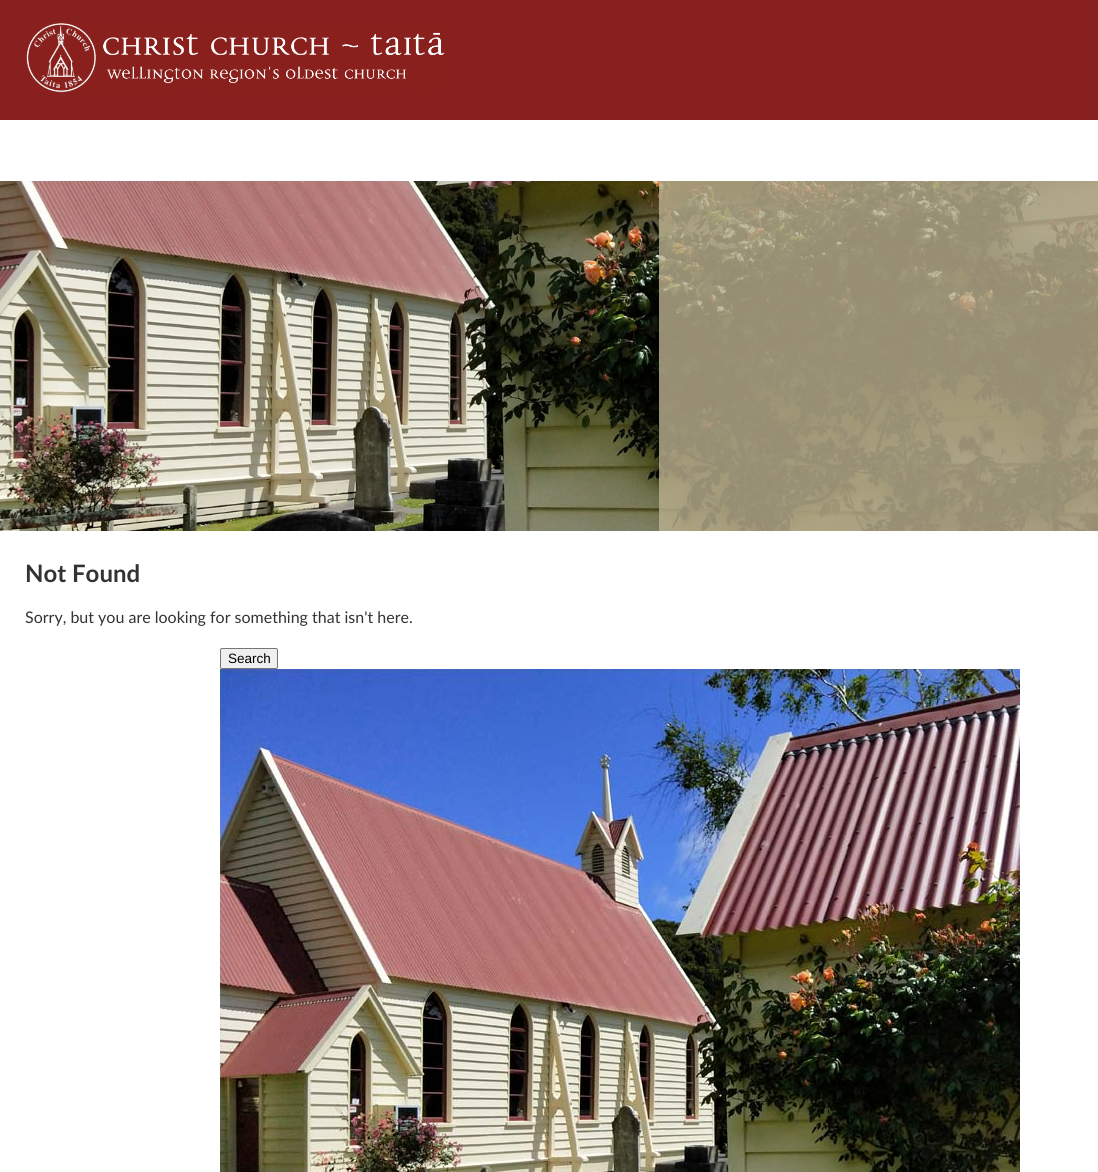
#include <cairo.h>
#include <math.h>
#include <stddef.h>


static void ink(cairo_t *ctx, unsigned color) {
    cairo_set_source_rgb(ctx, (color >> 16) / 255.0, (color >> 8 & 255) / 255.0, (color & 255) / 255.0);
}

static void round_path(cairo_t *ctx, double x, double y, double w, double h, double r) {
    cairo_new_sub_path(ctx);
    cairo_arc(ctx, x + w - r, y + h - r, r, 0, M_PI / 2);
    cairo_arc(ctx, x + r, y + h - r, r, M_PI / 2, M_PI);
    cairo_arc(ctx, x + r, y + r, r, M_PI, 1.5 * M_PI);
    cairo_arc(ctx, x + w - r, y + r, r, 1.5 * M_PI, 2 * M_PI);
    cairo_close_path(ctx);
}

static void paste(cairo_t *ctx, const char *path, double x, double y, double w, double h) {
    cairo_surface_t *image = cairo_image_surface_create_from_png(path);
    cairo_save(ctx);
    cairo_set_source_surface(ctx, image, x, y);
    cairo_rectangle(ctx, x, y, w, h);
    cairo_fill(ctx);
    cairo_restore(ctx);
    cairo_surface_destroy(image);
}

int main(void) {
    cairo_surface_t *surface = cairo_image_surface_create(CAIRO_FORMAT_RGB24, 1098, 1172);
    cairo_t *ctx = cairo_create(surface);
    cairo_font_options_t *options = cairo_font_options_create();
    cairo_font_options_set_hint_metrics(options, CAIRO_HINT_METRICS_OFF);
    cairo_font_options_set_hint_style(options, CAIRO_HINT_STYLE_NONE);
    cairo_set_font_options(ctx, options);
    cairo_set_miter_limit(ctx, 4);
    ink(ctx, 0xFFFFFF);
    cairo_paint(ctx);
    ink(ctx, 0x88201F);
    cairo_rectangle(ctx, 0, 0, 1098, 120);
    cairo_fill(ctx);
    paste(ctx, "media/1.png", 26, 22, 419, 71);
    paste(ctx, "media/2.png", 0, 181, 1098, 350);
    cairo_set_source_rgba(ctx, 0.737, 0.69, 0.565, 0.8);
    cairo_rectangle(ctx, 659, 181, 439, 350);
    cairo_fill(ctx);
    cairo_select_font_face(ctx, "Lato", CAIRO_FONT_SLANT_NORMAL, CAIRO_FONT_WEIGHT_BOLD);
    cairo_set_font_size(ctx, 24);
    ink(ctx, 0x333333);
    cairo_move_to(ctx, 25, 582);
    cairo_show_text(ctx, "Not Found");
    cairo_select_font_face(ctx, "Lato", CAIRO_FONT_SLANT_NORMAL, CAIRO_FONT_WEIGHT_NORMAL);
    cairo_set_font_size(ctx, 16);
    cairo_move_to(ctx, 25, 623);
    cairo_show_text(ctx, "Sorry, but you are looking for something that isn't here.");
    ink(ctx, 0xEFEFEF);
    round_path(ctx, 220.5, 648.5, 57, 20, 1.5);
    cairo_fill_preserve(ctx);
    ink(ctx, 0x767676);
    cairo_set_line_width(ctx, 1);
    cairo_stroke(ctx);
    cairo_select_font_face(ctx, "Liberation Sans", CAIRO_FONT_SLANT_NORMAL, CAIRO_FONT_WEIGHT_NORMAL);
    cairo_set_font_size(ctx, 13.5);
    ink(ctx, 0x000000);
    cairo_move_to(ctx, 228, 663);
    cairo_show_text(ctx, "Search");
    paste(ctx, "media/3.png", 220, 669, 800, 503);
    cairo_surface_write_to_png(surface, "image.png");
    cairo_font_options_destroy(options);
    cairo_destroy(ctx);
    cairo_surface_destroy(surface);
    return 0;
}
